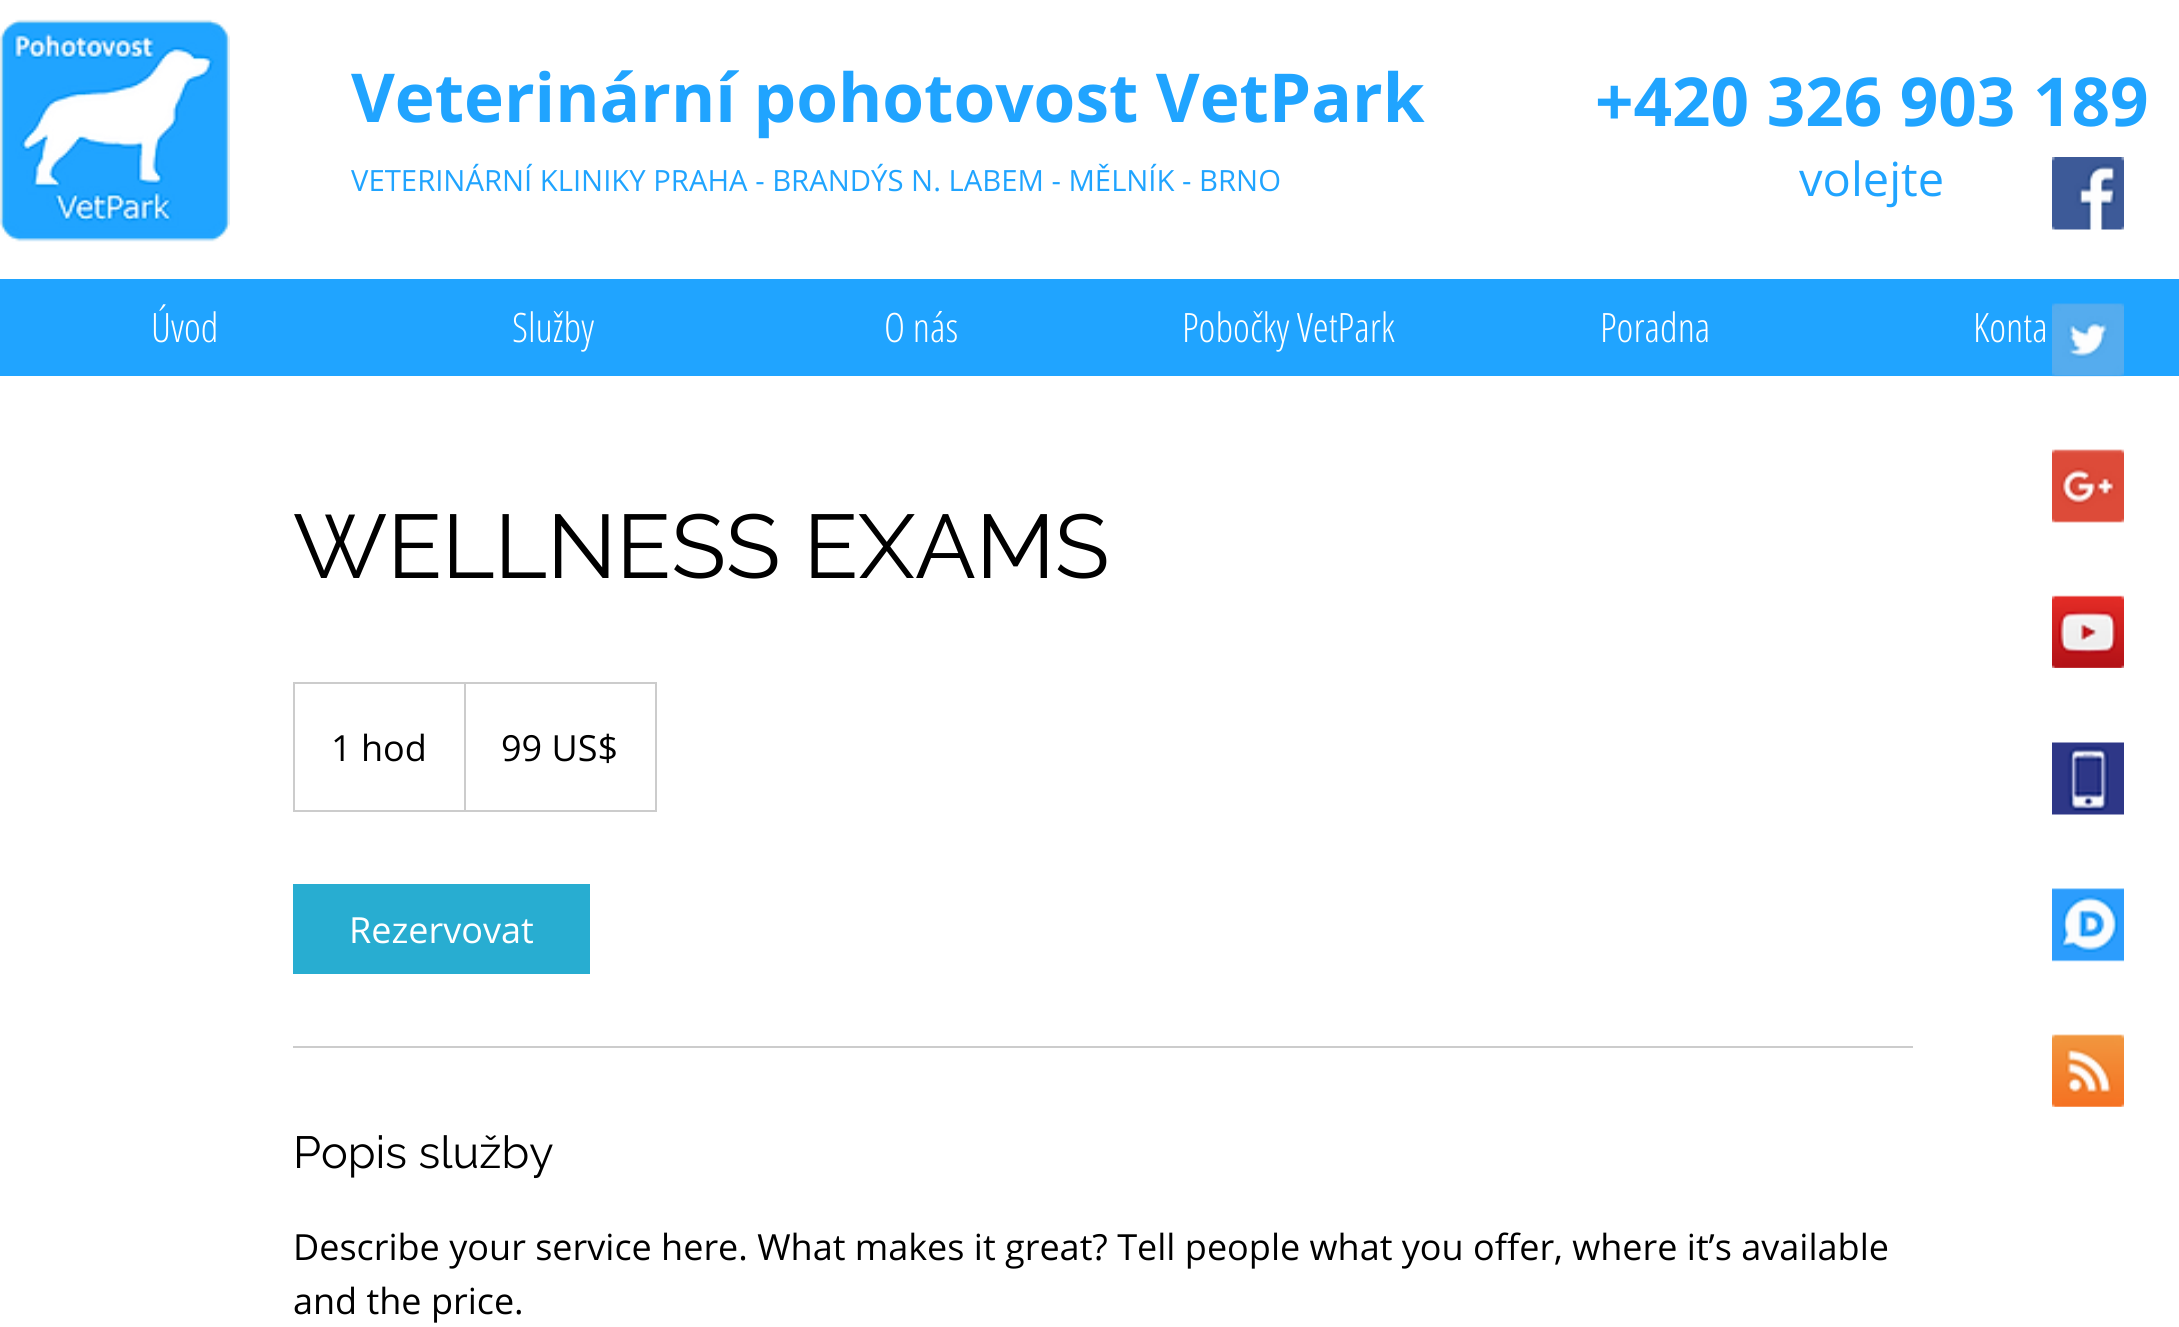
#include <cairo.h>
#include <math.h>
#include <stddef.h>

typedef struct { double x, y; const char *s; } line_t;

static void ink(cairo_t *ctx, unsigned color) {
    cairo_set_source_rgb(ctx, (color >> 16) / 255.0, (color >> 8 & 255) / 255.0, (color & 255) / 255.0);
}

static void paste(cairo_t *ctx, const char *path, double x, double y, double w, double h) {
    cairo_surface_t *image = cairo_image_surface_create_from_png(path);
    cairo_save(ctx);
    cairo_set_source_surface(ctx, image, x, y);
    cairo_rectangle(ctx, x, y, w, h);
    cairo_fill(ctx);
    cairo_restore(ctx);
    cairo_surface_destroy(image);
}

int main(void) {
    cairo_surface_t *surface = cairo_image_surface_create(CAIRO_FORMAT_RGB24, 2179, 1327);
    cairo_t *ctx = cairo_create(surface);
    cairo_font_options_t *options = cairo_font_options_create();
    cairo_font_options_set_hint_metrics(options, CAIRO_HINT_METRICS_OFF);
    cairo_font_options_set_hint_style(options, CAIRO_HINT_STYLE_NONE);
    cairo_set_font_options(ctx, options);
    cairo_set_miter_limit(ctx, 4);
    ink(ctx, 0xFFFFFF);
    cairo_paint(ctx);
    paste(ctx, "media/1.png", 0, 19, 230, 223);
    cairo_select_font_face(ctx, "Open Sans", CAIRO_FONT_SLANT_NORMAL, CAIRO_FONT_WEIGHT_BOLD);
    cairo_set_font_size(ctx, 67.5);
    ink(ctx, 0x20A4FF);
    cairo_move_to(ctx, 351, 122);
    cairo_show_text(ctx, "Veterinární pohotovost VetPark");
    cairo_select_font_face(ctx, "Open Sans", CAIRO_FONT_SLANT_NORMAL, CAIRO_FONT_WEIGHT_NORMAL);
    cairo_set_font_size(ctx, 29.25);
    cairo_move_to(ctx, 351, 191);
    cairo_show_text(ctx, "VETERINÁRNÍ KLINIKY PRAHA - BRANDÝS N. LABEM - MĚLNÍK - BRNO");
    cairo_select_font_face(ctx, "Open Sans", CAIRO_FONT_SLANT_NORMAL, CAIRO_FONT_WEIGHT_BOLD);
    cairo_set_font_size(ctx, 67.5);
    cairo_move_to(ctx, 1595, 126);
    cairo_show_text(ctx, "+420 326 903 189");
    cairo_select_font_face(ctx, "Open Sans", CAIRO_FONT_SLANT_NORMAL, CAIRO_FONT_WEIGHT_NORMAL);
    cairo_set_font_size(ctx, 47);
    cairo_move_to(ctx, 1799, 196);
    cairo_show_text(ctx, "volejte");
    cairo_rectangle(ctx, 0, 279, 2179, 97);
    cairo_fill(ctx);
    cairo_select_font_face(ctx, "Open Sans Condensed Light", CAIRO_FONT_SLANT_NORMAL, CAIRO_FONT_WEIGHT_NORMAL);
    cairo_set_font_size(ctx, 40.5);
    ink(ctx, 0xFFFFFF);
    {
        static const line_t items[] = {
            {151, 342, "Úvod"},
            {512, 342, "Služby"},
            {884, 342, "O nás"},
            {1182, 342, "Pobočky VetPark"},
            {1600, 342, "Poradna"},
            {1973, 342, "Konta"},
        };
        for (size_t i = 0; i < sizeof items / sizeof *items; i++) {
            cairo_move_to(ctx, items[i].x, items[i].y);
            cairo_show_text(ctx, items[i].s);
        }
    }
    cairo_select_font_face(ctx, "Raleway", CAIRO_FONT_SLANT_NORMAL, CAIRO_FONT_WEIGHT_NORMAL);
    cairo_set_font_size(ctx, 90);
    ink(ctx, 0x000000);
    cairo_move_to(ctx, 293, 578);
    cairo_show_text(ctx, "WELLNESS EXAMS");
    cairo_rectangle(ctx, 294, 683, 362, 128);
    ink(ctx, 0xCCCCCC);
    cairo_stroke(ctx);
    cairo_select_font_face(ctx, "Open Sans", CAIRO_FONT_SLANT_NORMAL, CAIRO_FONT_WEIGHT_NORMAL);
    cairo_set_font_size(ctx, 36);
    ink(ctx, 0x000000);
    cairo_move_to(ctx, 331, 761);
    cairo_show_text(ctx, "1 hod");
    cairo_save(ctx);
    cairo_rectangle(ctx, 295, 684, 360, 126);
    cairo_clip(ctx);
    ink(ctx, 0xCCCCCC);
    cairo_new_path(ctx);
    cairo_move_to(ctx, 464, 810);
    cairo_line_to(ctx, 464, 682);
    cairo_line_to(ctx, 466, 684);
    cairo_line_to(ctx, 466, 810);
    cairo_close_path(ctx);
    cairo_fill(ctx);
    cairo_restore(ctx);
    cairo_move_to(ctx, 501, 761);
    cairo_show_text(ctx, "99 US$");
    ink(ctx, 0x28ADD1);
    cairo_rectangle(ctx, 293, 884, 297, 90);
    cairo_fill(ctx);
    ink(ctx, 0xFFFFFF);
    cairo_move_to(ctx, 349, 943);
    cairo_show_text(ctx, "Rezervovat");
    ink(ctx, 0xCCCCCC);
    cairo_rectangle(ctx, 293, 1046, 1620, 2);
    cairo_fill(ctx);
    cairo_select_font_face(ctx, "Raleway", CAIRO_FONT_SLANT_NORMAL, CAIRO_FONT_WEIGHT_NORMAL);
    cairo_set_font_size(ctx, 45);
    ink(ctx, 0x000000);
    cairo_move_to(ctx, 293, 1168);
    cairo_show_text(ctx, "Popis služby");
    cairo_select_font_face(ctx, "Open Sans", CAIRO_FONT_SLANT_NORMAL, CAIRO_FONT_WEIGHT_NORMAL);
    cairo_set_font_size(ctx, 36);
    cairo_move_to(ctx, 293, 1260);
    cairo_show_text(ctx, "Describe your service here. What makes it great? Tell people what you offer, where it’s available");
    cairo_move_to(ctx, 293, 1314);
    cairo_show_text(ctx, "and the price.");
    paste(ctx, "media/2.png", 2052, 157, 72, 73);
    paste(ctx, "media/3.png", 2052, 303, 72, 74);
    paste(ctx, "media/4.png", 2052, 449, 72, 74);
    paste(ctx, "media/5.png", 2052, 595, 72, 73);
    paste(ctx, "media/6.png", 2052, 742, 72, 73);
    paste(ctx, "media/7.png", 2052, 888, 72, 74);
    paste(ctx, "media/8.png", 2052, 1034, 72, 73);
    cairo_surface_write_to_png(surface, "image.png");
    cairo_font_options_destroy(options);
    cairo_destroy(ctx);
    cairo_surface_destroy(surface);
    return 0;
}
